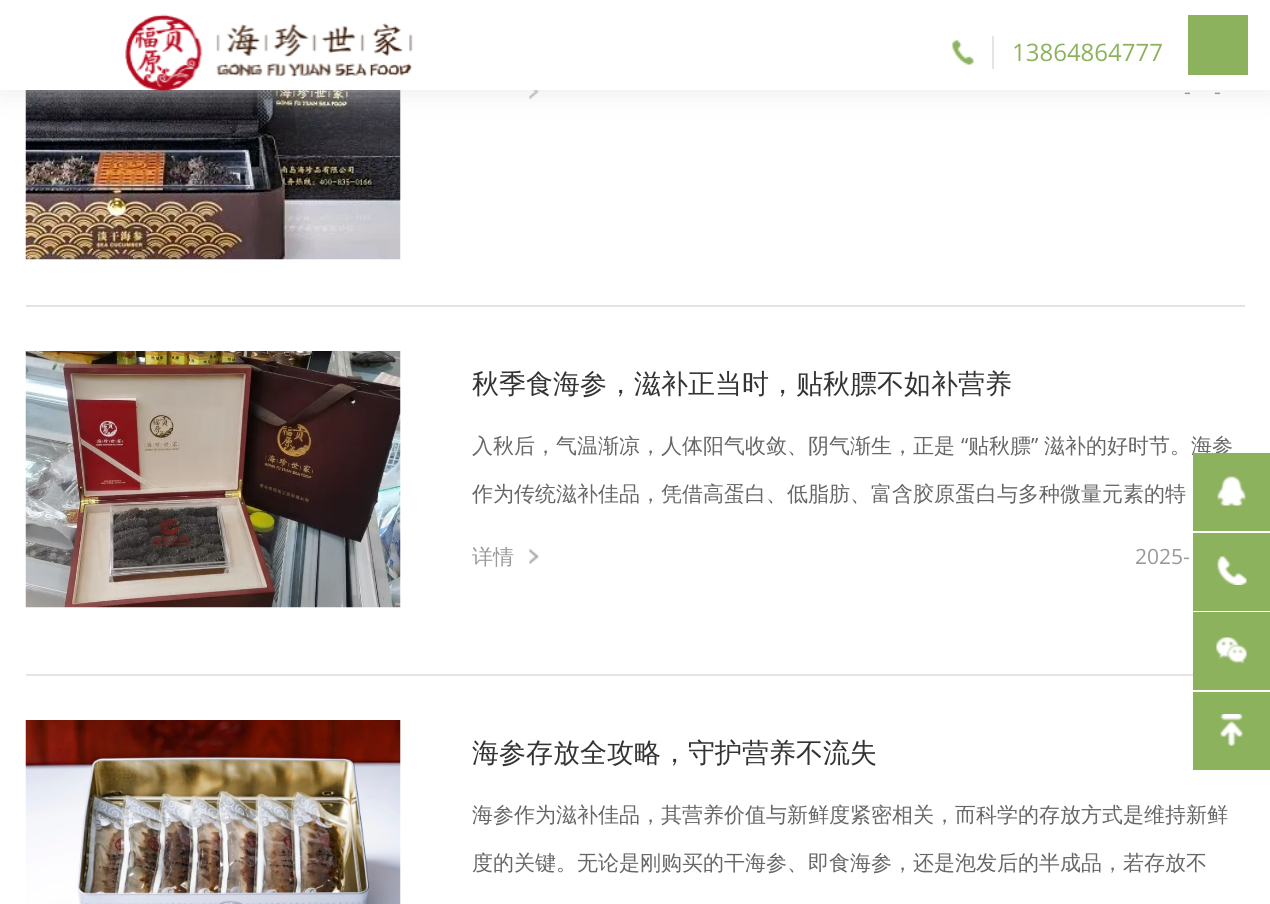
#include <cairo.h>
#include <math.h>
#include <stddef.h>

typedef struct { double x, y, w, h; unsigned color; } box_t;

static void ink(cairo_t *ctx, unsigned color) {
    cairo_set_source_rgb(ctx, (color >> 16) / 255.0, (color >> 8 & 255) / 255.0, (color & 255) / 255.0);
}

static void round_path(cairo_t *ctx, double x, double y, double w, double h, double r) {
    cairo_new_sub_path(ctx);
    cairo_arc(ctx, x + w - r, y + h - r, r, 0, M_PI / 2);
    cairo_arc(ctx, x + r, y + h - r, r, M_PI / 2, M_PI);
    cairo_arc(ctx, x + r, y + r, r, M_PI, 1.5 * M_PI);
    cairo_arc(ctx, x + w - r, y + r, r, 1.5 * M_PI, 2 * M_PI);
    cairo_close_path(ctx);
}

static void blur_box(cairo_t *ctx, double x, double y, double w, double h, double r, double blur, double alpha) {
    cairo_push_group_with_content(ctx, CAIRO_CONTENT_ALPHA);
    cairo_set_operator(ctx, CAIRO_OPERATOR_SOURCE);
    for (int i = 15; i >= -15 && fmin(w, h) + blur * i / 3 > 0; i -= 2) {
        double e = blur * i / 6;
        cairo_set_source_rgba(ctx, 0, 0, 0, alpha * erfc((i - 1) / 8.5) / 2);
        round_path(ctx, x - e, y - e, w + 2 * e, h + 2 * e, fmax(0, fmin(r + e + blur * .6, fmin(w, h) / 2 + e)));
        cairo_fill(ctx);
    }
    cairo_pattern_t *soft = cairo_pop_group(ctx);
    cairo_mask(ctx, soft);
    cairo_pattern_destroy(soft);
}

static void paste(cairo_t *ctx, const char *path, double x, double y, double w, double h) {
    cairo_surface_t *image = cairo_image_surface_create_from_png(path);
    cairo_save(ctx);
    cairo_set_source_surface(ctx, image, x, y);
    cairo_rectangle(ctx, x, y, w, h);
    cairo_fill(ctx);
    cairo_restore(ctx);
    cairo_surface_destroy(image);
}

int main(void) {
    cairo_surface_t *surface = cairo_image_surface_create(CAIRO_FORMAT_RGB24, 1270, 904);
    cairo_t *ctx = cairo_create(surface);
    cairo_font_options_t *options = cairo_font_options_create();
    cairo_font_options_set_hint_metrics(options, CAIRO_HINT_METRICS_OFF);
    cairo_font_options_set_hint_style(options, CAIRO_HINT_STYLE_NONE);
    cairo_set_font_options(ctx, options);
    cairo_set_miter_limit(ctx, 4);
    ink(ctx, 0xFFFFFF);
    cairo_paint(ctx);
    paste(ctx, "media/3.png", 25, 90, 376, 170);
    paste(ctx, "media/4.png", 529, 90, 10, 9);
    ink(ctx, 0xE5E5E5);
    blur_box(ctx, 0, 0, 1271, 90, 0, 15, 0.8);
    ink(ctx, 0xFFFFFF);
    cairo_rectangle(ctx, 0, 0, 1270, 90);
    cairo_fill(ctx);
    paste(ctx, "media/1.png", 125, 14, 288, 78);
    paste(ctx, "media/2.png", 952, 40, 22, 25);
    cairo_select_font_face(ctx, "Open Sans", CAIRO_FONT_SLANT_NORMAL, CAIRO_FONT_WEIGHT_NORMAL);
    cairo_set_font_size(ctx, 24);
    ink(ctx, 0x8CB25E);
    cairo_move_to(ctx, 1012, 61);
    cairo_show_text(ctx, "13864864777");
    {
        static const box_t items[] = {
            {992, 36, 2, 33, 0xE7E3E2},
            {1188, 15, 60, 60, 0x8CB25E},
            {26, 305, 1219, 2, 0xE7E3E2},
        };
        for (size_t i = 0; i < sizeof items / sizeof *items; i++) {
            ink(ctx, items[i].color);
            cairo_rectangle(ctx, items[i].x, items[i].y, items[i].w, items[i].h);
            cairo_fill(ctx);
        }
    }
    cairo_set_font_size(ctx, 21);
    ink(ctx, 0x999999);
    cairo_move_to(ctx, 1184, 99);
    cairo_show_text(ctx, "-");
    cairo_move_to(ctx, 1214, 99);
    cairo_show_text(ctx, "-");
    ink(ctx, 0xE7E3E2);
    cairo_rectangle(ctx, 26, 674, 1167, 2);
    cairo_fill(ctx);
    paste(ctx, "media/5.png", 25, 351, 376, 257);
    cairo_select_font_face(ctx, "WenQuanYi Zen Hei Medium", CAIRO_FONT_SLANT_NORMAL, CAIRO_FONT_WEIGHT_NORMAL);
    cairo_set_font_size(ctx, 27);
    ink(ctx, 0x333333);
    cairo_move_to(ctx, 472, 393);
    cairo_show_text(ctx, "秋季食海参，滋补正当时，贴秋膘不如补营养");
    cairo_set_font_size(ctx, 21);
    ink(ctx, 0x666666);
    cairo_move_to(ctx, 472, 453);
    cairo_show_text(ctx, "入秋后，气温渐凉，人体阳气收敛、阴气渐生，正是");
    cairo_select_font_face(ctx, "Open Sans", CAIRO_FONT_SLANT_NORMAL, CAIRO_FONT_WEIGHT_NORMAL);
    cairo_move_to(ctx, 961, 453);
    cairo_show_text(ctx, "“");
    cairo_select_font_face(ctx, "WenQuanYi Zen Hei Medium", CAIRO_FONT_SLANT_NORMAL, CAIRO_FONT_WEIGHT_NORMAL);
    cairo_move_to(ctx, 968, 453);
    cairo_show_text(ctx, "贴秋膘");
    cairo_select_font_face(ctx, "Open Sans", CAIRO_FONT_SLANT_NORMAL, CAIRO_FONT_WEIGHT_NORMAL);
    cairo_move_to(ctx, 1031, 453);
    cairo_show_text(ctx, "”");
    cairo_select_font_face(ctx, "WenQuanYi Zen Hei Medium", CAIRO_FONT_SLANT_NORMAL, CAIRO_FONT_WEIGHT_NORMAL);
    cairo_move_to(ctx, 1044, 453);
    cairo_show_text(ctx, "滋补的好时节。海参");
    cairo_move_to(ctx, 472, 501);
    cairo_show_text(ctx, "作为传统滋补佳品，凭借高蛋白、低脂肪、富含胶原蛋白与多种微量元素的特");
    paste(ctx, "media/6.png", 529, 549, 10, 15);
    ink(ctx, 0x999999);
    cairo_move_to(ctx, 472, 564);
    cairo_show_text(ctx, "详情");
    cairo_select_font_face(ctx, "Open Sans", CAIRO_FONT_SLANT_NORMAL, CAIRO_FONT_WEIGHT_NORMAL);
    cairo_move_to(ctx, 1135, 564);
    cairo_show_text(ctx, "2025-");
    paste(ctx, "media/7.png", 25, 720, 376, 184);
    cairo_select_font_face(ctx, "WenQuanYi Zen Hei Medium", CAIRO_FONT_SLANT_NORMAL, CAIRO_FONT_WEIGHT_NORMAL);
    cairo_set_font_size(ctx, 27);
    ink(ctx, 0x333333);
    cairo_move_to(ctx, 472, 762);
    cairo_show_text(ctx, "海参存放全攻略，守护营养不流失");
    cairo_set_font_size(ctx, 21);
    ink(ctx, 0x666666);
    cairo_move_to(ctx, 472, 822);
    cairo_show_text(ctx, "海参作为滋补佳品，其营养价值与新鲜度紧密相关，而科学的存放方式是维持新鲜");
    cairo_move_to(ctx, 472, 870);
    cairo_show_text(ctx, "度的关键。无论是刚购买的干海参、即食海参，还是泡发后的半成品，若存放不");
    ink(ctx, 0x8CB25E);
    cairo_rectangle(ctx, 1193, 453, 77, 78);
    cairo_fill(ctx);
    paste(ctx, "media/8.png", 1217, 476, 29, 30);
    cairo_rectangle(ctx, 1193, 533, 77, 78);
    cairo_fill(ctx);
    paste(ctx, "media/9.png", 1217, 556, 30, 29);
    cairo_rectangle(ctx, 1193, 612, 77, 78);
    cairo_fill(ctx);
    paste(ctx, "media/10.png", 1216, 637, 31, 27);
    cairo_rectangle(ctx, 1193, 692, 77, 78);
    cairo_fill(ctx);
    paste(ctx, "media/11.png", 1220, 714, 23, 32);
    cairo_surface_write_to_png(surface, "image.png");
    cairo_font_options_destroy(options);
    cairo_destroy(ctx);
    cairo_surface_destroy(surface);
    return 0;
}
